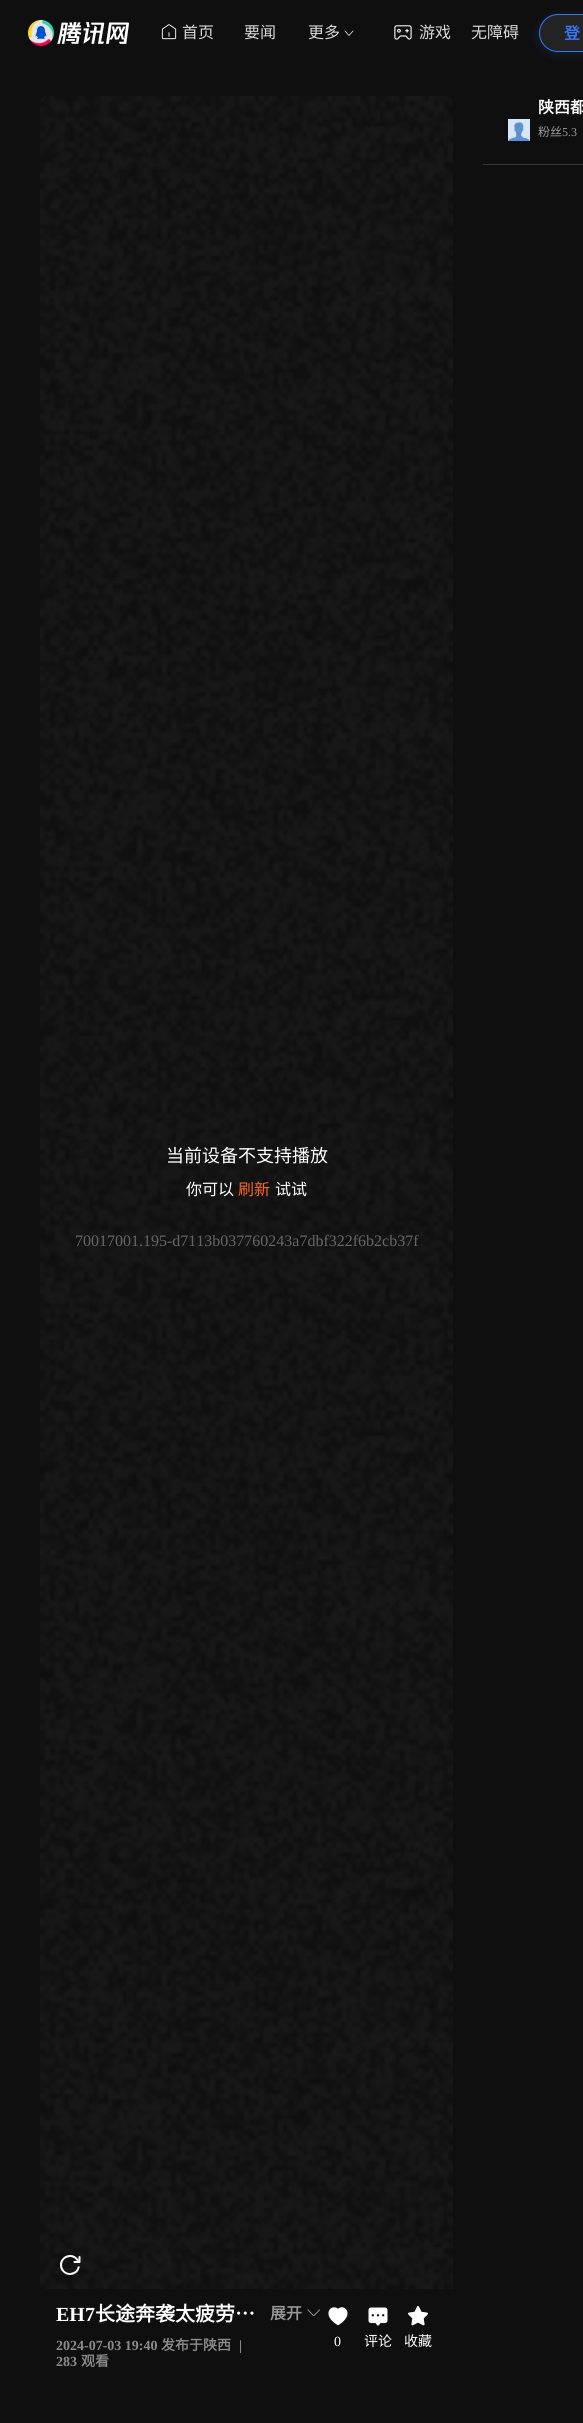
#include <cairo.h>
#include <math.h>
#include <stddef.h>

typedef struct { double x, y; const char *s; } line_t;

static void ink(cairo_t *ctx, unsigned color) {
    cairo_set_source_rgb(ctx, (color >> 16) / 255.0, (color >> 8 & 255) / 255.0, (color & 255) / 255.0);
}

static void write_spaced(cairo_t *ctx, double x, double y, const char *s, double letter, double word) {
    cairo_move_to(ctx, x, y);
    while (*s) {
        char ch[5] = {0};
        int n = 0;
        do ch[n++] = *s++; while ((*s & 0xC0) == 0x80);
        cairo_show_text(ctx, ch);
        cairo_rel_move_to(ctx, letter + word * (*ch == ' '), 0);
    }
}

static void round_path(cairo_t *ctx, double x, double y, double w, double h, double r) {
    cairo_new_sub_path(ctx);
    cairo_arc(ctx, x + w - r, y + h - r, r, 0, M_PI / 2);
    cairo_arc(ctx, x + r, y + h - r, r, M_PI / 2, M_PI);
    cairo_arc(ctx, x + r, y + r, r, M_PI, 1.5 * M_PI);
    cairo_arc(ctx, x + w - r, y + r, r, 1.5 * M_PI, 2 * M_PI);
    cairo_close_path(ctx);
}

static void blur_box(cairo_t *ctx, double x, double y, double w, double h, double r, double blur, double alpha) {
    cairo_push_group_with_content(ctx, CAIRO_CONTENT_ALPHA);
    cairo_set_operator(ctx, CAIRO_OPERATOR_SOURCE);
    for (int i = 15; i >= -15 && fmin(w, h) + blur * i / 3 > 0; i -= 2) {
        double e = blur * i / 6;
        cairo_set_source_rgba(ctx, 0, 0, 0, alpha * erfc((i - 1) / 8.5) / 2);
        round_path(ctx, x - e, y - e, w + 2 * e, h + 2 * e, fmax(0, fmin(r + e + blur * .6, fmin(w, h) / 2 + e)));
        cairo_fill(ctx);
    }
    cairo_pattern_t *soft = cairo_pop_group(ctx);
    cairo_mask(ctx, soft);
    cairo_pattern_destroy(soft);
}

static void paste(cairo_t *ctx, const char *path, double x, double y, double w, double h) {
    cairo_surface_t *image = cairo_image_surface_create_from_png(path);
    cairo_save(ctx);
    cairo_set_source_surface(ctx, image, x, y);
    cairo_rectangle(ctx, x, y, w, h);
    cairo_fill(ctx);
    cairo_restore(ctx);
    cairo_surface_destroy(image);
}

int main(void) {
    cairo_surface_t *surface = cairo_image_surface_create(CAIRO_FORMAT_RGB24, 583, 2423);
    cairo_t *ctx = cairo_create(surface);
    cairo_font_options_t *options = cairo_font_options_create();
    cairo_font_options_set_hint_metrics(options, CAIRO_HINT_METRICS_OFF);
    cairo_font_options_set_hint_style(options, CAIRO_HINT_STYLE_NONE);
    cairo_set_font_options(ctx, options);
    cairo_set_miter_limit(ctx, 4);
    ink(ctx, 0x0F0F0F);
    cairo_paint(ctx);
    paste(ctx, "media/1.png", 28, 20, 101, 26);
    paste(ctx, "media/2.png", 161, 24, 16, 16);
    cairo_select_font_face(ctx, "Noto Sans CJK SC", CAIRO_FONT_SLANT_NORMAL, CAIRO_FONT_WEIGHT_NORMAL);
    cairo_set_font_size(ctx, 16);
    ink(ctx, 0xD9D9D9);
    {
        static const line_t items[] = {
            {182, 38, "首页"},
            {244, 38, "要闻"},
            {308, 38, "更多"},
        };
        for (size_t i = 0; i < sizeof items / sizeof *items; i++) {
            cairo_move_to(ctx, items[i].x, items[i].y);
            cairo_show_text(ctx, items[i].s);
        }
    }
    cairo_new_path(ctx);
    cairo_move_to(ctx, 353, 31);
    cairo_line_to(ctx, 349, 35.5);
    cairo_line_to(ctx, 345, 31);
    ink(ctx, 0xFFFFFF);
    cairo_set_line_width(ctx, 0.7);
    cairo_set_line_cap(ctx, CAIRO_LINE_CAP_ROUND);
    cairo_set_line_join(ctx, CAIRO_LINE_JOIN_ROUND);
    cairo_stroke(ctx);
    paste(ctx, "media/3.png", 394, 25, 18, 15);
    ink(ctx, 0xD9D9D9);
    cairo_move_to(ctx, 419, 38);
    cairo_show_text(ctx, "游戏");
    cairo_move_to(ctx, 471, 38);
    cairo_show_text(ctx, "无障碍");
    cairo_save(ctx);
    cairo_set_fill_rule(ctx, CAIRO_FILL_RULE_EVEN_ODD);
    cairo_new_path(ctx);
    cairo_move_to(ctx, 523, 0);
    cairo_line_to(ctx, 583, 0);
    cairo_line_to(ctx, 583, 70);
    cairo_line_to(ctx, 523, 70);
    cairo_close_path(ctx);
    cairo_move_to(ctx, 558, 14);
    cairo_line_to(ctx, 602, 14);
    cairo_curve_to(ctx, 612.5, 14, 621, 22.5, 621, 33);
    cairo_curve_to(ctx, 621, 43.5, 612.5, 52, 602, 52);
    cairo_line_to(ctx, 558, 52);
    cairo_curve_to(ctx, 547.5, 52, 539, 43.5, 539, 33);
    cairo_curve_to(ctx, 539, 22.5, 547.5, 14, 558, 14);
    cairo_close_path(ctx);
    cairo_clip(ctx);
    ink(ctx, 0x3377FF);
    blur_box(ctx, 539, 16, 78, 38, 19, 5, 0.16);
    cairo_restore(ctx);
    cairo_set_source_rgba(ctx, 0.851, 0.851, 0.851, 0.1);
    round_path(ctx, 539.5, 14.5, 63, 37, 18.5);
    cairo_fill_preserve(ctx);
    ink(ctx, 0x3377FF);
    cairo_set_line_width(ctx, 1);
    cairo_set_line_cap(ctx, CAIRO_LINE_CAP_BUTT);
    cairo_set_line_join(ctx, CAIRO_LINE_JOIN_MITER);
    cairo_stroke(ctx);
    cairo_select_font_face(ctx, "Noto Sans CJK SC", CAIRO_FONT_SLANT_NORMAL, CAIRO_FONT_WEIGHT_BOLD);
    cairo_move_to(ctx, 564, 39);
    cairo_show_text(ctx, "登");
    paste(ctx, "media/4.png", 508, 119, 22, 22);
    ink(ctx, 0xFFFFFF);
    cairo_move_to(ctx, 538, 113);
    cairo_show_text(ctx, "陕西都");
    cairo_select_font_face(ctx, "Noto Sans CJK SC", CAIRO_FONT_SLANT_NORMAL, CAIRO_FONT_WEIGHT_NORMAL);
    cairo_set_font_size(ctx, 12);
    ink(ctx, 0x999999);
    cairo_move_to(ctx, 538, 136);
    cairo_show_text(ctx, "粉丝");
    cairo_select_font_face(ctx, "Liberation Serif", CAIRO_FONT_SLANT_NORMAL, CAIRO_FONT_WEIGHT_NORMAL);
    cairo_move_to(ctx, 562, 136);
    cairo_show_text(ctx, "5.3");
    ink(ctx, 0x383838);
    cairo_rectangle(ctx, 483, 164, 100, 1);
    cairo_fill(ctx);
    paste(ctx, "media/5.png", 40, 96, 413, 2193);
    cairo_select_font_face(ctx, "Noto Sans CJK SC", CAIRO_FONT_SLANT_NORMAL, CAIRO_FONT_WEIGHT_NORMAL);
    cairo_set_font_size(ctx, 18);
    ink(ctx, 0xFFFFFF);
    cairo_move_to(ctx, 166, 1162);
    cairo_show_text(ctx, "当前设备不支持播放");
    cairo_set_font_size(ctx, 16);
    cairo_move_to(ctx, 186, 1195);
    cairo_show_text(ctx, "你可以");
    ink(ctx, 0xFC6526);
    cairo_move_to(ctx, 238, 1195);
    cairo_show_text(ctx, "刷新");
    ink(ctx, 0xFFFFFF);
    cairo_move_to(ctx, 275, 1195);
    cairo_show_text(ctx, "试试");
    cairo_select_font_face(ctx, "Liberation Serif", CAIRO_FONT_SLANT_NORMAL, CAIRO_FONT_WEIGHT_NORMAL);
    ink(ctx, 0x666666);
    cairo_move_to(ctx, 75, 1246);
    cairo_show_text(ctx, "70017001.195-d7113b037760243a7dbf322f6b2cb37f");
    cairo_select_font_face(ctx, "Liberation Serif", CAIRO_FONT_SLANT_NORMAL, CAIRO_FONT_WEIGHT_BOLD);
    cairo_set_font_size(ctx, 20);
    ink(ctx, 0xFFFFFF);
    cairo_move_to(ctx, 56, 2321);
    cairo_show_text(ctx, "EH7");
    cairo_select_font_face(ctx, "Noto Sans CJK SC", CAIRO_FONT_SLANT_NORMAL, CAIRO_FONT_WEIGHT_BOLD);
    write_spaced(ctx, 95, 2321, "长途奔袭太疲劳…", 0, 1);
    cairo_set_font_size(ctx, 16);
    ink(ctx, 0x999999);
    cairo_move_to(ctx, 270, 2319);
    cairo_show_text(ctx, "展开");
    paste(ctx, "media/6.png", 307, 2309, 13, 7);
    cairo_select_font_face(ctx, "Liberation Serif", CAIRO_FONT_SLANT_NORMAL, CAIRO_FONT_WEIGHT_BOLD);
    cairo_set_font_size(ctx, 14);
    ink(ctx, 0x8B8B8B);
    cairo_move_to(ctx, 56, 2350);
    cairo_show_text(ctx, "2024-07-03 19:40");
    cairo_select_font_face(ctx, "Noto Sans CJK SC", CAIRO_FONT_SLANT_NORMAL, CAIRO_FONT_WEIGHT_BOLD);
    cairo_move_to(ctx, 161, 2350);
    cairo_show_text(ctx, "发布于陕西");
    cairo_select_font_face(ctx, "Liberation Serif", CAIRO_FONT_SLANT_NORMAL, CAIRO_FONT_WEIGHT_BOLD);
    cairo_move_to(ctx, 239, 2350);
    cairo_show_text(ctx, "|");
    cairo_move_to(ctx, 56, 2366);
    cairo_show_text(ctx, "283");
    cairo_select_font_face(ctx, "Noto Sans CJK SC", CAIRO_FONT_SLANT_NORMAL, CAIRO_FONT_WEIGHT_BOLD);
    cairo_move_to(ctx, 81, 2366);
    cairo_show_text(ctx, "观看");
    paste(ctx, "media/7.png", 328, 2307, 20, 19);
    cairo_select_font_face(ctx, "Liberation Serif", CAIRO_FONT_SLANT_NORMAL, CAIRO_FONT_WEIGHT_NORMAL);
    ink(ctx, 0xFFFFFF);
    cairo_move_to(ctx, 334, 2346);
    cairo_show_text(ctx, "0");
    paste(ctx, "media/8.png", 368, 2307, 20, 19);
    cairo_select_font_face(ctx, "Noto Sans CJK SC", CAIRO_FONT_SLANT_NORMAL, CAIRO_FONT_WEIGHT_NORMAL);
    cairo_move_to(ctx, 364, 2346);
    cairo_show_text(ctx, "评论");
    paste(ctx, "media/9.png", 408, 2306, 20, 20);
    cairo_move_to(ctx, 404, 2346);
    cairo_show_text(ctx, "收藏");
    cairo_surface_write_to_png(surface, "image.png");
    cairo_font_options_destroy(options);
    cairo_destroy(ctx);
    cairo_surface_destroy(surface);
    return 0;
}
